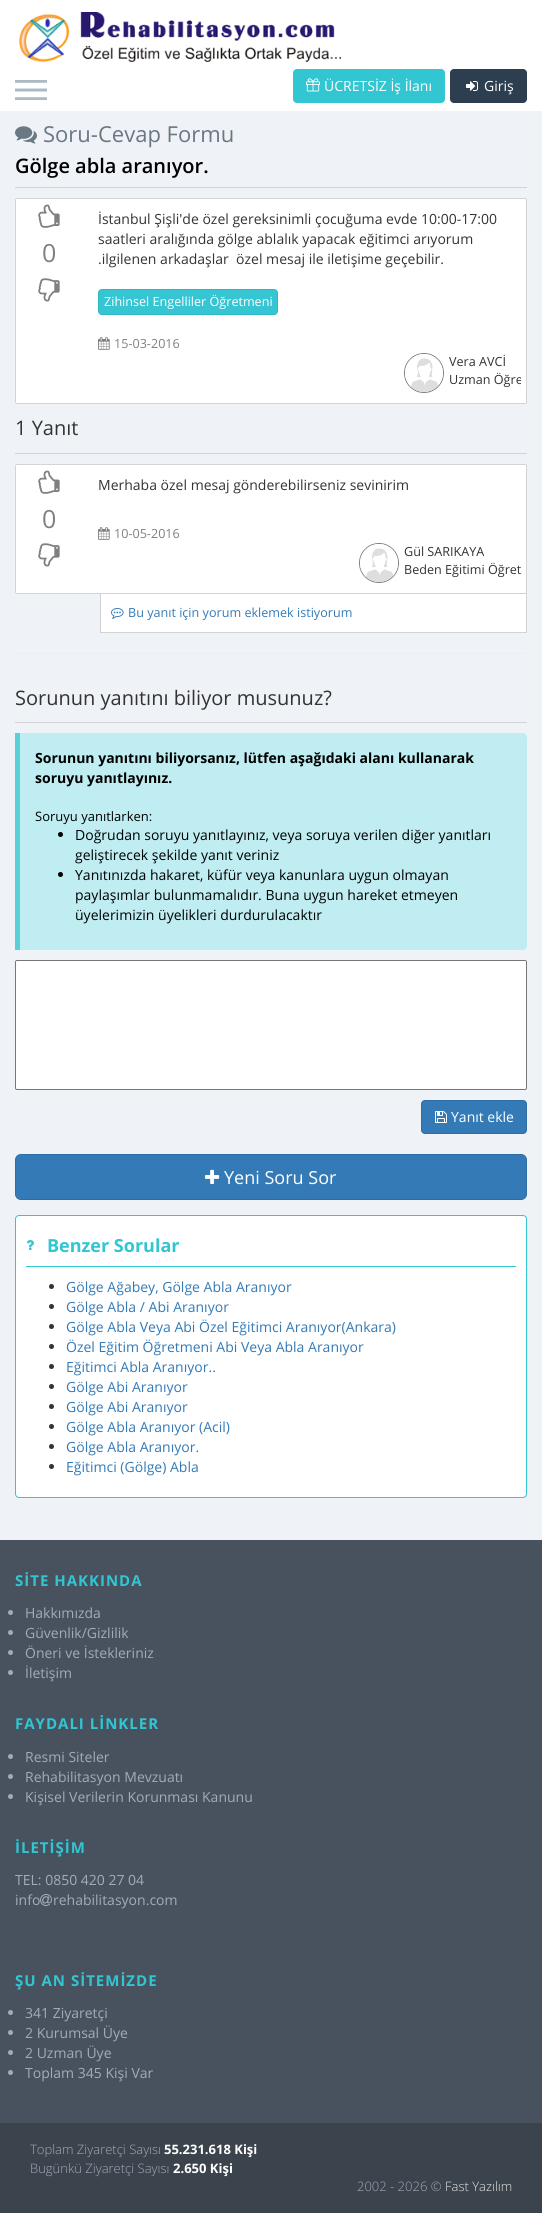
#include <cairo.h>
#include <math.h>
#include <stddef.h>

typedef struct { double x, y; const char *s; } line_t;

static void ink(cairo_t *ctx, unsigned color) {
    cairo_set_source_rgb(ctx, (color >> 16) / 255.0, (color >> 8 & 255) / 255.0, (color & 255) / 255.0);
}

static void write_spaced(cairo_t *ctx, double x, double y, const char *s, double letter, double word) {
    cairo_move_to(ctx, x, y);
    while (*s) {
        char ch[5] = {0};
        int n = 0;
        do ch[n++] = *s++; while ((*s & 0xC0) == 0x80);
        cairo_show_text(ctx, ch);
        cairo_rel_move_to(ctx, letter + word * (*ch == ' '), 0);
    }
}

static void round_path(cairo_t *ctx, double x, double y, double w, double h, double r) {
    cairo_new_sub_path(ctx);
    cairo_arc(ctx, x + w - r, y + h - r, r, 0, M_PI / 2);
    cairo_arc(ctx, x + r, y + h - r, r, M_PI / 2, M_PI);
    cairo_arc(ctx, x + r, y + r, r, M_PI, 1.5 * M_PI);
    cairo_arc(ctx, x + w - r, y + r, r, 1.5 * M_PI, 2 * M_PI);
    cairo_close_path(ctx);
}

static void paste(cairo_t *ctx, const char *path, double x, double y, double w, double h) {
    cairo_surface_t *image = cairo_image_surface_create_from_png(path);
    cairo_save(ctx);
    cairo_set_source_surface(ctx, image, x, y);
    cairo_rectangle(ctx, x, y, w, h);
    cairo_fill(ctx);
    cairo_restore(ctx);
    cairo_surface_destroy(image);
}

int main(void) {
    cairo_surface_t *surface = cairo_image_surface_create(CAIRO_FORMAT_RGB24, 542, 2213);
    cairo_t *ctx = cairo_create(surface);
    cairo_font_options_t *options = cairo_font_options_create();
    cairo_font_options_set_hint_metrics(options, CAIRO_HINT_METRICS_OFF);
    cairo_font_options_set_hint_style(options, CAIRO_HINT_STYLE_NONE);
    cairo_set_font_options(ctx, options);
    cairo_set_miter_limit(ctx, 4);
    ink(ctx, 0xFFFFFF);
    cairo_paint(ctx);
    paste(ctx, "media/1.png", 19, 12, 322, 50);
    paste(ctx, "media/2.png", 15, 80, 32, 20);
    ink(ctx, 0x32C5D2);
    round_path(ctx, 293.5, 69.5, 151, 33, 3.5);
    cairo_fill_preserve(ctx);
    cairo_set_line_width(ctx, 1);
    cairo_stroke(ctx);
    paste(ctx, "media/3.png", 306, 78, 14, 14);
    cairo_select_font_face(ctx, "Open Sans", CAIRO_FONT_SLANT_NORMAL, CAIRO_FONT_WEIGHT_NORMAL);
    cairo_set_font_size(ctx, 14);
    ink(ctx, 0xFFFFFF);
    cairo_move_to(ctx, 324, 91);
    cairo_show_text(ctx, "ÜCRETSİZ İş İlanı");
    ink(ctx, 0x2C3E50);
    round_path(ctx, 450.5, 69.5, 76, 33, 3.5);
    cairo_fill_preserve(ctx);
    cairo_stroke(ctx);
    paste(ctx, "media/4.png", 466, 81, 12, 10);
    ink(ctx, 0xFFFFFF);
    cairo_move_to(ctx, 484, 91);
    cairo_show_text(ctx, "Giriş");
    ink(ctx, 0xEFF3F8);
    cairo_rectangle(ctx, 0, 111, 542, 1429);
    cairo_fill(ctx);
    paste(ctx, "media/5.png", 15, 126, 22, 18);
    cairo_set_font_size(ctx, 22);
    ink(ctx, 0x697882);
    cairo_move_to(ctx, 43, 142);
    cairo_show_text(ctx, "Soru-Cevap Formu");
    ink(ctx, 0xD3D3D3);
    cairo_rectangle(ctx, 15, 187, 512, 1);
    cairo_fill(ctx);
    cairo_select_font_face(ctx, "Open Sans SemiBold", CAIRO_FONT_SLANT_NORMAL, CAIRO_FONT_WEIGHT_NORMAL);
    cairo_set_font_size(ctx, 20);
    ink(ctx, 0x000000);
    cairo_move_to(ctx, 15, 173);
    cairo_show_text(ctx, "Gölge abla aranıyor.");
    ink(ctx, 0xFFFFFF);
    round_path(ctx, 15.5, 198.5, 511, 205, 1.5);
    cairo_fill_preserve(ctx);
    ink(ctx, 0xD3D3D3);
    cairo_stroke(ctx);
    paste(ctx, "media/6.png", 38, 204, 22, 24);
    cairo_select_font_face(ctx, "Open Sans", CAIRO_FONT_SLANT_NORMAL, CAIRO_FONT_WEIGHT_NORMAL);
    cairo_set_font_size(ctx, 25);
    ink(ctx, 0x808080);
    cairo_move_to(ctx, 42, 262);
    cairo_show_text(ctx, "0");
    paste(ctx, "media/7.png", 38, 278, 22, 24);
    cairo_set_font_size(ctx, 14);
    ink(ctx, 0x333333);
    {
        static const line_t items[] = {
            {98, 224, "İstanbul Şişli'de özel gereksinimli çocuğuma evde 10:00-17:00"},
            {98, 244, "saatleri aralığında gölge ablalık yapacak eğitimci arıyorum"},
            {98, 264, ".ilgilenen arkadaşlar  özel mesaj ile iletişime geçebilir."},
        };
        for (size_t i = 0; i < sizeof items / sizeof *items; i++) {
            cairo_move_to(ctx, items[i].x, items[i].y);
            cairo_show_text(ctx, items[i].s);
        }
    }
    ink(ctx, 0x36C6D3);
    round_path(ctx, 98.5, 289.5, 179, 25, 3.5);
    cairo_fill_preserve(ctx);
    ink(ctx, 0x2BB8C4);
    cairo_stroke(ctx);
    cairo_set_font_size(ctx, 12.6);
    ink(ctx, 0xFFFFFF);
    cairo_move_to(ctx, 104, 306);
    cairo_show_text(ctx, "Zihinsel Engelliler Öğretmeni");
    paste(ctx, "media/8.png", 98, 337, 12, 13);
    ink(ctx, 0x808080);
    cairo_move_to(ctx, 114, 348);
    cairo_show_text(ctx, "15-03-2016");
    cairo_new_path(ctx);
    cairo_arc(ctx, 424, 373, 19.5, 0, 2 * M_PI);
    cairo_stroke(ctx);
    paste(ctx, "media/9.png", 405, 354, 38, 38);
    ink(ctx, 0x333333);
    cairo_move_to(ctx, 449, 366);
    cairo_show_text(ctx, "Vera AVCİ");
    cairo_save(ctx);
    cairo_rectangle(ctx, 389, 353, 132, 40);
    cairo_clip(ctx);
    cairo_move_to(ctx, 449, 384);
    cairo_show_text(ctx, "Uzman Öğre");
    cairo_restore(ctx);
    ink(ctx, 0xD3D3D3);
    cairo_rectangle(ctx, 15, 453, 512, 1);
    cairo_fill(ctx);
    cairo_set_font_size(ctx, 20);
    ink(ctx, 0x333333);
    cairo_move_to(ctx, 15, 435);
    cairo_show_text(ctx, "1 Yanıt");
    ink(ctx, 0xFFFFFF);
    round_path(ctx, 15.5, 464.5, 511, 129, 1.5);
    cairo_fill_preserve(ctx);
    ink(ctx, 0xD3D3D3);
    cairo_stroke(ctx);
    paste(ctx, "media/6.png", 38, 470, 22, 24);
    cairo_set_font_size(ctx, 25);
    ink(ctx, 0x808080);
    cairo_move_to(ctx, 42, 528);
    cairo_show_text(ctx, "0");
    paste(ctx, "media/7.png", 38, 543, 22, 24);
    cairo_set_font_size(ctx, 14);
    ink(ctx, 0x333333);
    cairo_move_to(ctx, 98, 490);
    cairo_show_text(ctx, "Merhaba özel mesaj gönderebilirseniz sevinirim");
    paste(ctx, "media/8.png", 98, 527, 12, 13);
    cairo_set_font_size(ctx, 12.6);
    ink(ctx, 0x808080);
    cairo_move_to(ctx, 114, 538);
    cairo_show_text(ctx, "10-05-2016");
    cairo_new_path(ctx);
    cairo_arc(ctx, 379, 563, 19.5, 0, 2 * M_PI);
    cairo_stroke(ctx);
    paste(ctx, "media/9.png", 360, 544, 38, 38);
    ink(ctx, 0x333333);
    cairo_move_to(ctx, 404, 556);
    cairo_show_text(ctx, "Gül SARIKAYA");
    cairo_move_to(ctx, 404, 574);
    cairo_show_text(ctx, "Beden Eğitimi Öğret");
    ink(ctx, 0xFFFFFF);
    cairo_rectangle(ctx, 100.5, 593.5, 426, 39);
    cairo_fill_preserve(ctx);
    ink(ctx, 0xD3D3D3);
    cairo_stroke(ctx);
    paste(ctx, "media/10.png", 111, 608, 13, 11);
    ink(ctx, 0x337AB7);
    cairo_move_to(ctx, 128, 617);
    cairo_show_text(ctx, "Bu yanıt için yorum eklemek istiyorum");
    ink(ctx, 0xEEEEEE);
    cairo_rectangle(ctx, 15, 653, 512, 1);
    cairo_fill(ctx);
    ink(ctx, 0xD3D3D3);
    cairo_rectangle(ctx, 15, 722, 512, 1);
    cairo_fill(ctx);
    cairo_set_font_size(ctx, 20);
    ink(ctx, 0x333333);
    cairo_move_to(ctx, 15, 705);
    cairo_show_text(ctx, "Sorunun yanıtını biliyor musunuz?");
    ink(ctx, 0xC0EDF1);
    cairo_new_path(ctx);
    cairo_move_to(ctx, 15, 733);
    cairo_line_to(ctx, 523, 733);
    cairo_curve_to(ctx, 525, 733, 527, 735, 527, 737);
    cairo_line_to(ctx, 527, 946);
    cairo_curve_to(ctx, 527, 948, 525, 950, 523, 950);
    cairo_line_to(ctx, 15, 950);
    cairo_close_path(ctx);
    cairo_fill(ctx);
    ink(ctx, 0x58D0DA);
    cairo_rectangle(ctx, 15, 733, 5, 217);
    cairo_fill(ctx);
    cairo_select_font_face(ctx, "Open Sans", CAIRO_FONT_SLANT_NORMAL, CAIRO_FONT_WEIGHT_BOLD);
    cairo_set_font_size(ctx, 14);
    ink(ctx, 0x000000);
    cairo_move_to(ctx, 35, 763);
    cairo_show_text(ctx, "Sorunun yanıtını biliyorsanız, lütfen aşağıdaki alanı kullanarak");
    cairo_move_to(ctx, 35, 783);
    cairo_show_text(ctx, "soruyu yanıtlayınız.");
    cairo_select_font_face(ctx, "Open Sans", CAIRO_FONT_SLANT_NORMAL, CAIRO_FONT_WEIGHT_NORMAL);
    cairo_set_font_size(ctx, 13);
    cairo_move_to(ctx, 35, 821);
    cairo_show_text(ctx, "Soruyu yanıtlarken:");
    cairo_new_path(ctx);
    cairo_arc(ctx, 60.5, 834.5, 2.5, 0, 2 * M_PI);
    cairo_fill(ctx);
    cairo_set_font_size(ctx, 14);
    cairo_move_to(ctx, 75, 840);
    cairo_show_text(ctx, "Doğrudan soruyu yanıtlayınız, veya soruya verilen diğer yanıtları");
    cairo_move_to(ctx, 75, 860);
    cairo_show_text(ctx, "geliştirecek şekilde yanıt veriniz");
    cairo_new_path(ctx);
    cairo_arc(ctx, 60.5, 874.5, 2.5, 0, 2 * M_PI);
    cairo_fill(ctx);
    {
        static const line_t items[] = {
            {75, 880, "Yanıtınızda hakaret, küfür veya kanunlara uygun olmayan"},
            {75, 900, "paylaşımlar bulunmamalıdır. Buna uygun hareket etmeyen"},
            {75, 920, "üyelerimizin üyelikleri durdurulacaktır"},
        };
        for (size_t i = 0; i < sizeof items / sizeof *items; i++) {
            cairo_move_to(ctx, items[i].x, items[i].y);
            cairo_show_text(ctx, items[i].s);
        }
    }
    ink(ctx, 0xFFFFFF);
    round_path(ctx, 15.5, 960.5, 511, 129, 1.5);
    cairo_fill_preserve(ctx);
    ink(ctx, 0x767676);
    cairo_stroke(ctx);
    ink(ctx, 0x337AB7);
    round_path(ctx, 421.5, 1100.5, 105, 33, 3.5);
    cairo_fill_preserve(ctx);
    ink(ctx, 0x2E6DA4);
    cairo_stroke(ctx);
    paste(ctx, "media/11.png", 435, 1111, 12, 12);
    ink(ctx, 0xFFFFFF);
    cairo_move_to(ctx, 451, 1122);
    cairo_show_text(ctx, "Yanıt ekle");
    ink(ctx, 0x337AB7);
    round_path(ctx, 15.5, 1154.5, 511, 45, 5.5);
    cairo_fill_preserve(ctx);
    ink(ctx, 0x2E6DA4);
    cairo_stroke(ctx);
    paste(ctx, "media/12.png", 205, 1169, 15, 15);
    cairo_set_font_size(ctx, 18);
    ink(ctx, 0xFFFFFF);
    cairo_move_to(ctx, 224, 1184);
    cairo_show_text(ctx, "Yeni Soru Sor");
    round_path(ctx, 15.5, 1215.5, 511, 282, 3.5);
    cairo_fill_preserve(ctx);
    ink(ctx, 0x32C5D2);
    cairo_stroke(ctx);
    cairo_rectangle(ctx, 26, 1266, 490, 1);
    cairo_fill(ctx);
    paste(ctx, "media/13.png", 26, 1240, 8, 10);
    cairo_select_font_face(ctx, "Open Sans", CAIRO_FONT_SLANT_NORMAL, CAIRO_FONT_WEIGHT_BOLD);
    cairo_move_to(ctx, 47, 1252);
    cairo_show_text(ctx, "Benzer Sorular");
    ink(ctx, 0x333333);
    cairo_new_path(ctx);
    cairo_arc(ctx, 51.5, 1286.5, 2.5, 0, 2 * M_PI);
    cairo_fill(ctx);
    cairo_select_font_face(ctx, "Open Sans", CAIRO_FONT_SLANT_NORMAL, CAIRO_FONT_WEIGHT_NORMAL);
    cairo_set_font_size(ctx, 14);
    ink(ctx, 0x337AB7);
    cairo_move_to(ctx, 66, 1292);
    cairo_show_text(ctx, "Gölge Ağabey, Gölge Abla Aranıyor");
    ink(ctx, 0x333333);
    cairo_new_path(ctx);
    cairo_arc(ctx, 51.5, 1306.5, 2.5, 0, 2 * M_PI);
    cairo_fill(ctx);
    ink(ctx, 0x337AB7);
    cairo_move_to(ctx, 66, 1312);
    cairo_show_text(ctx, "Gölge Abla / Abi Aranıyor");
    ink(ctx, 0x333333);
    cairo_new_path(ctx);
    cairo_arc(ctx, 51.5, 1326.5, 2.5, 0, 2 * M_PI);
    cairo_fill(ctx);
    ink(ctx, 0x337AB7);
    cairo_move_to(ctx, 66, 1332);
    cairo_show_text(ctx, "Gölge Abla Veya Abi Özel Eğitimci Aranıyor(Ankara)");
    ink(ctx, 0x333333);
    cairo_new_path(ctx);
    cairo_arc(ctx, 51.5, 1346.5, 2.5, 0, 2 * M_PI);
    cairo_fill(ctx);
    ink(ctx, 0x337AB7);
    cairo_move_to(ctx, 66, 1352);
    cairo_show_text(ctx, "Özel Eğitim Öğretmeni Abi Veya Abla Aranıyor");
    ink(ctx, 0x333333);
    cairo_new_path(ctx);
    cairo_arc(ctx, 51.5, 1366.5, 2.5, 0, 2 * M_PI);
    cairo_fill(ctx);
    ink(ctx, 0x337AB7);
    cairo_move_to(ctx, 66, 1372);
    cairo_show_text(ctx, "Eğitimci Abla Aranıyor..");
    ink(ctx, 0x333333);
    cairo_new_path(ctx);
    cairo_arc(ctx, 51.5, 1386.5, 2.5, 0, 2 * M_PI);
    cairo_fill(ctx);
    ink(ctx, 0x337AB7);
    cairo_move_to(ctx, 66, 1392);
    cairo_show_text(ctx, "Gölge Abi Aranıyor");
    ink(ctx, 0x333333);
    cairo_new_path(ctx);
    cairo_arc(ctx, 51.5, 1406.5, 2.5, 0, 2 * M_PI);
    cairo_fill(ctx);
    ink(ctx, 0x337AB7);
    cairo_move_to(ctx, 66, 1412);
    cairo_show_text(ctx, "Gölge Abi Aranıyor");
    ink(ctx, 0x333333);
    cairo_new_path(ctx);
    cairo_arc(ctx, 51.5, 1426.5, 2.5, 0, 2 * M_PI);
    cairo_fill(ctx);
    ink(ctx, 0x337AB7);
    cairo_move_to(ctx, 66, 1432);
    cairo_show_text(ctx, "Gölge Abla Aranıyor (Acil)");
    ink(ctx, 0x333333);
    cairo_new_path(ctx);
    cairo_arc(ctx, 51.5, 1446.5, 2.5, 0, 2 * M_PI);
    cairo_fill(ctx);
    ink(ctx, 0x337AB7);
    cairo_move_to(ctx, 66, 1452);
    cairo_show_text(ctx, "Gölge Abla Aranıyor.");
    ink(ctx, 0x333333);
    cairo_new_path(ctx);
    cairo_arc(ctx, 51.5, 1466.5, 2.5, 0, 2 * M_PI);
    cairo_fill(ctx);
    ink(ctx, 0x337AB7);
    cairo_move_to(ctx, 66, 1472);
    cairo_show_text(ctx, "Eğitimci (Gölge) Abla");
    ink(ctx, 0x48525E);
    cairo_rectangle(ctx, 0, 1540, 542, 583);
    cairo_fill(ctx);
    cairo_select_font_face(ctx, "Open Sans", CAIRO_FONT_SLANT_NORMAL, CAIRO_FONT_WEIGHT_BOLD);
    cairo_set_font_size(ctx, 15);
    ink(ctx, 0x32C5D2);
    write_spaced(ctx, 15, 1586, "SİTE HAKKINDA", 1, 0);
    ink(ctx, 0xA2ABB7);
    cairo_new_path(ctx);
    cairo_arc(ctx, 10.5, 1612.5, 2.5, 0, 2 * M_PI);
    cairo_fill(ctx);
    cairo_select_font_face(ctx, "Open Sans", CAIRO_FONT_SLANT_NORMAL, CAIRO_FONT_WEIGHT_NORMAL);
    cairo_set_font_size(ctx, 14);
    cairo_move_to(ctx, 25, 1618);
    cairo_show_text(ctx, "Hakkımızda");
    cairo_new_path(ctx);
    cairo_arc(ctx, 10.5, 1632.5, 2.5, 0, 2 * M_PI);
    cairo_fill(ctx);
    cairo_move_to(ctx, 25, 1638);
    cairo_show_text(ctx, "Güvenlik/Gizlilik");
    cairo_new_path(ctx);
    cairo_arc(ctx, 10.5, 1652.5, 2.5, 0, 2 * M_PI);
    cairo_fill(ctx);
    cairo_move_to(ctx, 25, 1658);
    cairo_show_text(ctx, "Öneri ve İstekleriniz");
    cairo_new_path(ctx);
    cairo_arc(ctx, 10.5, 1672.5, 2.5, 0, 2 * M_PI);
    cairo_fill(ctx);
    cairo_move_to(ctx, 25, 1678);
    cairo_show_text(ctx, "İletişim");
    cairo_select_font_face(ctx, "Open Sans", CAIRO_FONT_SLANT_NORMAL, CAIRO_FONT_WEIGHT_BOLD);
    cairo_set_font_size(ctx, 15);
    ink(ctx, 0x32C5D2);
    write_spaced(ctx, 15, 1729, "FAYDALI LİNKLER", 1, 0);
    ink(ctx, 0xA2ABB7);
    cairo_new_path(ctx);
    cairo_arc(ctx, 10.5, 1756.5, 2.5, 0, 2 * M_PI);
    cairo_fill(ctx);
    cairo_select_font_face(ctx, "Open Sans", CAIRO_FONT_SLANT_NORMAL, CAIRO_FONT_WEIGHT_NORMAL);
    cairo_set_font_size(ctx, 14);
    cairo_move_to(ctx, 25, 1762);
    cairo_show_text(ctx, "Resmi Siteler");
    cairo_new_path(ctx);
    cairo_arc(ctx, 10.5, 1776.5, 2.5, 0, 2 * M_PI);
    cairo_fill(ctx);
    cairo_move_to(ctx, 25, 1782);
    cairo_show_text(ctx, "Rehabilitasyon Mevzuatı");
    cairo_new_path(ctx);
    cairo_arc(ctx, 10.5, 1796.5, 2.5, 0, 2 * M_PI);
    cairo_fill(ctx);
    cairo_move_to(ctx, 25, 1802);
    cairo_show_text(ctx, "Kişisel Verilerin Korunması Kanunu");
    cairo_select_font_face(ctx, "Open Sans", CAIRO_FONT_SLANT_NORMAL, CAIRO_FONT_WEIGHT_BOLD);
    cairo_set_font_size(ctx, 15);
    ink(ctx, 0x32C5D2);
    write_spaced(ctx, 15, 1853, "İLETİŞİM", 1, 0);
    cairo_select_font_face(ctx, "Open Sans", CAIRO_FONT_SLANT_NORMAL, CAIRO_FONT_WEIGHT_NORMAL);
    cairo_set_font_size(ctx, 14);
    ink(ctx, 0xA2ABB7);
    cairo_move_to(ctx, 15, 1885);
    cairo_show_text(ctx, "TEL: 0850 420 27 04");
    cairo_move_to(ctx, 15, 1905);
    cairo_show_text(ctx, "info");
    paste(ctx, "media/14.png", 40, 1894, 12, 12);
    cairo_move_to(ctx, 53, 1905);
    cairo_show_text(ctx, "rehabilitasyon.com");
    cairo_select_font_face(ctx, "Open Sans", CAIRO_FONT_SLANT_NORMAL, CAIRO_FONT_WEIGHT_BOLD);
    cairo_set_font_size(ctx, 15);
    ink(ctx, 0x32C5D2);
    write_spaced(ctx, 15, 1986, "ŞU AN SİTEMİZDE", 1, 0);
    ink(ctx, 0xA2ABB7);
    cairo_new_path(ctx);
    cairo_arc(ctx, 10.5, 2012.5, 2.5, 0, 2 * M_PI);
    cairo_fill(ctx);
    cairo_select_font_face(ctx, "Open Sans", CAIRO_FONT_SLANT_NORMAL, CAIRO_FONT_WEIGHT_NORMAL);
    cairo_set_font_size(ctx, 14);
    cairo_move_to(ctx, 25, 2018);
    cairo_show_text(ctx, "341 Ziyaretçi");
    cairo_new_path(ctx);
    cairo_arc(ctx, 10.5, 2032.5, 2.5, 0, 2 * M_PI);
    cairo_fill(ctx);
    cairo_move_to(ctx, 25, 2038);
    cairo_show_text(ctx, "2 Kurumsal Üye");
    cairo_new_path(ctx);
    cairo_arc(ctx, 10.5, 2052.5, 2.5, 0, 2 * M_PI);
    cairo_fill(ctx);
    cairo_move_to(ctx, 25, 2058);
    cairo_show_text(ctx, "2 Uzman Üye");
    cairo_new_path(ctx);
    cairo_arc(ctx, 10.5, 2072.5, 2.5, 0, 2 * M_PI);
    cairo_fill(ctx);
    cairo_move_to(ctx, 25, 2078);
    cairo_show_text(ctx, "Toplam 345 Kişi Var");
    ink(ctx, 0x3B434C);
    cairo_rectangle(ctx, 0, 2123, 542, 90);
    cairo_fill(ctx);
    cairo_select_font_face(ctx, "Open Sans Light", CAIRO_FONT_SLANT_NORMAL, CAIRO_FONT_WEIGHT_NORMAL);
    cairo_set_font_size(ctx, 13);
    ink(ctx, 0xA2ABB7);
    cairo_move_to(ctx, 30, 2154);
    cairo_show_text(ctx, "Toplam Ziyaretçi Sayısı");
    cairo_select_font_face(ctx, "Open Sans", CAIRO_FONT_SLANT_NORMAL, CAIRO_FONT_WEIGHT_BOLD);
    ink(ctx, 0xFFFFFF);
    cairo_move_to(ctx, 164, 2154);
    cairo_show_text(ctx, "55.231.618 Kişi");
    cairo_select_font_face(ctx, "Open Sans Light", CAIRO_FONT_SLANT_NORMAL, CAIRO_FONT_WEIGHT_NORMAL);
    ink(ctx, 0xA2ABB7);
    cairo_move_to(ctx, 30, 2173);
    cairo_show_text(ctx, "Bugünkü Ziyaretçi Sayısı");
    cairo_select_font_face(ctx, "Open Sans", CAIRO_FONT_SLANT_NORMAL, CAIRO_FONT_WEIGHT_BOLD);
    ink(ctx, 0xFFFFFF);
    cairo_move_to(ctx, 173, 2173);
    cairo_show_text(ctx, "2.650 Kişi");
    cairo_select_font_face(ctx, "Open Sans Light", CAIRO_FONT_SLANT_NORMAL, CAIRO_FONT_WEIGHT_NORMAL);
    ink(ctx, 0xA2ABB7);
    cairo_move_to(ctx, 357, 2191);
    cairo_show_text(ctx, "2002 - 2026 ©");
    ink(ctx, 0xE6E6E6);
    cairo_move_to(ctx, 445, 2191);
    cairo_show_text(ctx, "Fast Yazılım");
    cairo_surface_write_to_png(surface, "image.png");
    cairo_font_options_destroy(options);
    cairo_destroy(ctx);
    cairo_surface_destroy(surface);
    return 0;
}
